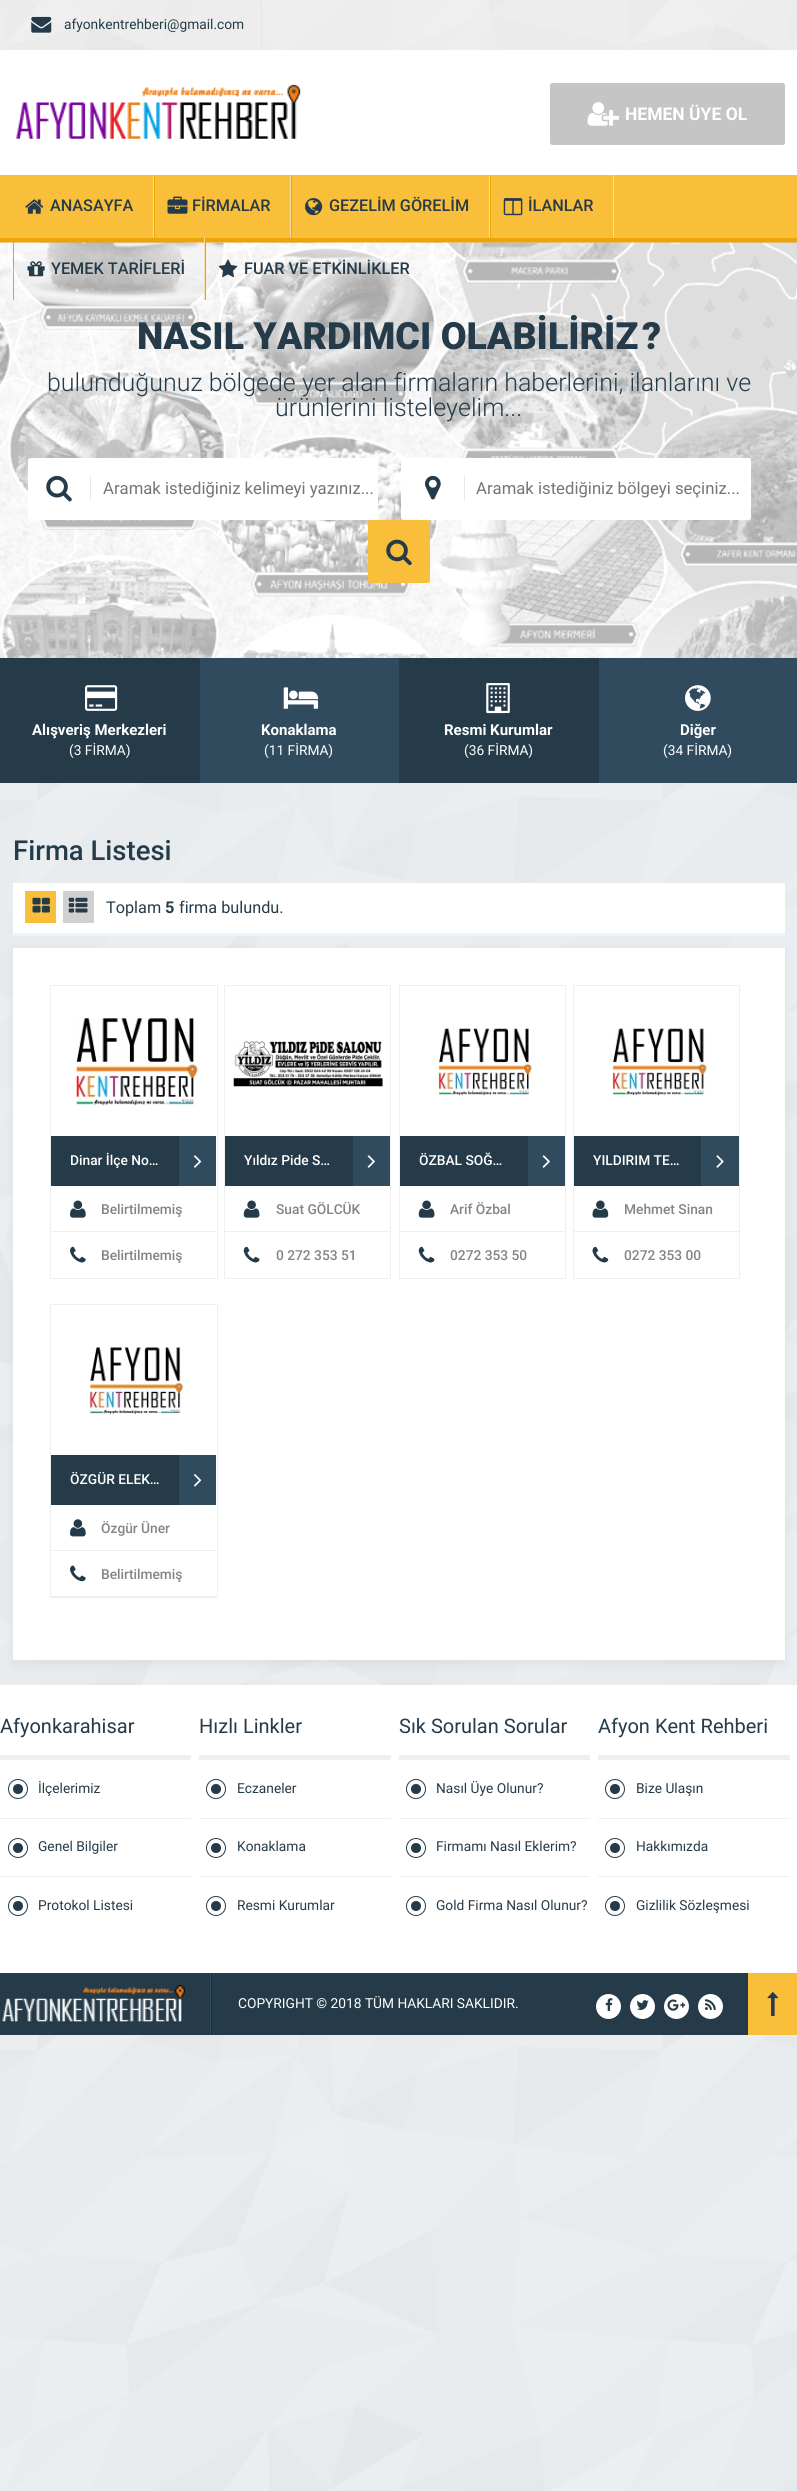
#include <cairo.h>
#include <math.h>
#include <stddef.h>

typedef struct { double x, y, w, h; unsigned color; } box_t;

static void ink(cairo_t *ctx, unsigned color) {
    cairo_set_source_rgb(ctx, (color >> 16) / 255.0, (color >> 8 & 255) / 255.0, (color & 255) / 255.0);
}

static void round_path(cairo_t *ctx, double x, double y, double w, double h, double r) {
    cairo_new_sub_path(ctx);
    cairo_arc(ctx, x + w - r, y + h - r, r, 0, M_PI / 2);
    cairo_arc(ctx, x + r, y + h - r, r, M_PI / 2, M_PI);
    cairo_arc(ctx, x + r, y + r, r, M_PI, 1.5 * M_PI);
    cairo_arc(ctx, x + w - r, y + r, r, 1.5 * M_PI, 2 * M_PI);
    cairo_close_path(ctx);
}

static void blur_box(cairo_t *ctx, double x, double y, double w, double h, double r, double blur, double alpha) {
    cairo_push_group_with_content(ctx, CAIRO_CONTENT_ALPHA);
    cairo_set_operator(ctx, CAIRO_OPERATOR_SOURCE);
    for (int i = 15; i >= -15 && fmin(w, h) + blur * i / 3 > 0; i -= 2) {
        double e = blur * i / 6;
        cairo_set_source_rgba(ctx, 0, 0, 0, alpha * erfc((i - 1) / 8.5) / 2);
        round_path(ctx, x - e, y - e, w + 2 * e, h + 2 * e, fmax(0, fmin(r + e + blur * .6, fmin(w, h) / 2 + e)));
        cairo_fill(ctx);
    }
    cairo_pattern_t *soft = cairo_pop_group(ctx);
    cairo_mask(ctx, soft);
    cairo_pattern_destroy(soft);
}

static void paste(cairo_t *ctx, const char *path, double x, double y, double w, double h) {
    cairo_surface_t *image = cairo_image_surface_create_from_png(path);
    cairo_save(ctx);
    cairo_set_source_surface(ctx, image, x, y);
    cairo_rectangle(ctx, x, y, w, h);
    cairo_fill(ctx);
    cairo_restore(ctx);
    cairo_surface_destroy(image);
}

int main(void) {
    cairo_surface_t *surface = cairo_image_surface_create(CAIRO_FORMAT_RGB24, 797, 2491);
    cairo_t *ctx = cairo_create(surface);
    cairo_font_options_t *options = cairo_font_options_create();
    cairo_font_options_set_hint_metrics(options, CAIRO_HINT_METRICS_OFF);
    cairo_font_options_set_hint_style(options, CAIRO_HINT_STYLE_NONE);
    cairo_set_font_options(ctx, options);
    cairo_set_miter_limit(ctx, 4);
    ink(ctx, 0xFFFFFF);
    cairo_paint(ctx);
    paste(ctx, "media/1.png", 0, 783, 797, 1708);
    paste(ctx, "media/2.png", 0, 0, 797, 50);
    ink(ctx, 0xE6E6E6);
    cairo_rectangle(ctx, 261, 0, 1, 50);
    cairo_fill(ctx);
    paste(ctx, "media/3.png", 31, 16, 21, 17);
    cairo_select_font_face(ctx, "Roboto", CAIRO_FONT_SLANT_NORMAL, CAIRO_FONT_WEIGHT_NORMAL);
    cairo_set_font_size(ctx, 13.75);
    ink(ctx, 0x253B49);
    cairo_move_to(ctx, 64, 29);
    cairo_show_text(ctx, "afyonkentrehberi@gmail.com");
    paste(ctx, "media/4.png", 16, 84, 285, 55);
    ink(ctx, 0xC5C5C5);
    round_path(ctx, 550, 83, 235, 62, 2.5);
    cairo_fill(ctx);
    paste(ctx, "media/5.png", 587, 102, 32, 24);
    cairo_select_font_face(ctx, "Roboto", CAIRO_FONT_SLANT_NORMAL, CAIRO_FONT_WEIGHT_BOLD);
    cairo_set_font_size(ctx, 17.5);
    ink(ctx, 0xFFFFFF);
    cairo_move_to(ctx, 625, 120);
    cairo_show_text(ctx, "HEMEN ÜYE OL");
    {
        static const box_t items[] = {
            {0, 175, 797, 63, 0xF9BF3B},
            {0, 238, 797, 5, 0xEBA507},
            {153, 175, 1, 63, 0xFCDF9E},
        };
        for (size_t i = 0; i < sizeof items / sizeof *items; i++) {
            ink(ctx, items[i].color);
            cairo_rectangle(ctx, items[i].x, items[i].y, items[i].w, items[i].h);
            cairo_fill(ctx);
        }
    }
    paste(ctx, "media/6.png", 25, 199, 19, 15);
    cairo_select_font_face(ctx, "Roboto Medium", CAIRO_FONT_SLANT_NORMAL, CAIRO_FONT_WEIGHT_NORMAL);
    cairo_set_font_size(ctx, 16.25);
    ink(ctx, 0x253B49);
    cairo_move_to(ctx, 50, 211);
    cairo_show_text(ctx, "ANASAYFA");
    ink(ctx, 0xFCDF9E);
    cairo_rectangle(ctx, 290, 175, 1, 63);
    cairo_fill(ctx);
    ink(ctx, 0xEBA507);
    cairo_rectangle(ctx, 154, 175, 1, 63);
    cairo_fill(ctx);
    paste(ctx, "media/7.png", 167, 196, 21, 18);
    ink(ctx, 0x253B49);
    cairo_move_to(ctx, 192, 211);
    cairo_show_text(ctx, "FİRMALAR");
    ink(ctx, 0xFCDF9E);
    cairo_rectangle(ctx, 489, 175, 1, 63);
    cairo_fill(ctx);
    ink(ctx, 0xEBA507);
    cairo_rectangle(ctx, 291, 175, 1, 63);
    cairo_fill(ctx);
    paste(ctx, "media/8.png", 305, 198, 18, 18);
    ink(ctx, 0x253B49);
    cairo_move_to(ctx, 329, 211);
    cairo_show_text(ctx, "GEZELİM GÖRELİM");
    ink(ctx, 0xFCDF9E);
    cairo_rectangle(ctx, 613, 175, 1, 63);
    cairo_fill(ctx);
    ink(ctx, 0xEBA507);
    cairo_rectangle(ctx, 490, 175, 1, 63);
    cairo_fill(ctx);
    paste(ctx, "media/9.png", 503, 198, 20, 18);
    ink(ctx, 0x253B49);
    cairo_move_to(ctx, 528, 211);
    cairo_show_text(ctx, "İLANLAR");
    paste(ctx, "media/12.png", 0, 242, 797, 416);
    ink(ctx, 0xFCDF9E);
    cairo_rectangle(ctx, 204, 238, 1, 62);
    cairo_fill(ctx);
    ink(ctx, 0xEBA507);
    cairo_rectangle(ctx, 13, 238, 1, 62);
    cairo_fill(ctx);
    paste(ctx, "media/10.png", 27, 261, 18, 16);
    ink(ctx, 0x253B49);
    cairo_move_to(ctx, 51, 274);
    cairo_show_text(ctx, "YEMEK TARİFLERİ");
    ink(ctx, 0xEBA507);
    cairo_rectangle(ctx, 205, 238, 1, 62);
    cairo_fill(ctx);
    paste(ctx, "media/11.png", 218, 259, 20, 19);
    ink(ctx, 0x253B49);
    cairo_move_to(ctx, 244, 274);
    cairo_show_text(ctx, "FUAR VE ETKİNLİKLER");
    cairo_select_font_face(ctx, "Roboto Black", CAIRO_FONT_SLANT_NORMAL, CAIRO_FONT_WEIGHT_NORMAL);
    cairo_set_font_size(ctx, 37.5);
    cairo_move_to(ctx, 137, 349);
    cairo_show_text(ctx, "NASIL YARDIMCI OLABİLİRİZ");
    cairo_move_to(ctx, 642, 349);
    cairo_show_text(ctx, "?");
    cairo_select_font_face(ctx, "Roboto Light", CAIRO_FONT_SLANT_NORMAL, CAIRO_FONT_WEIGHT_NORMAL);
    cairo_set_font_size(ctx, 25);
    cairo_move_to(ctx, 47, 391);
    cairo_show_text(ctx, "bulunduğunuz bölgede yer alan firmaların haberlerini, ilanlarını ve");
    cairo_move_to(ctx, 275, 416);
    cairo_show_text(ctx, "ürünlerini listeleyelim...");
    ink(ctx, 0xFFFFFF);
    round_path(ctx, 28, 458, 350, 62, 2.5);
    cairo_fill(ctx);
    ink(ctx, 0xE8E8E8);
    cairo_rectangle(ctx, 90, 476, 1, 25);
    cairo_fill(ctx);
    paste(ctx, "media/13.png", 46, 475, 26, 27);
    cairo_select_font_face(ctx, "Roboto", CAIRO_FONT_SLANT_NORMAL, CAIRO_FONT_WEIGHT_NORMAL);
    cairo_set_font_size(ctx, 16.7);
    ink(ctx, 0x757575);
    cairo_move_to(ctx, 103, 494);
    cairo_show_text(ctx, "Aramak istediğiniz kelimeyi yazınız...");
    ink(ctx, 0xFFFFFF);
    round_path(ctx, 401, 458, 350, 62, 2.5);
    cairo_fill(ctx);
    ink(ctx, 0xE8E8E8);
    cairo_rectangle(ctx, 464, 476, 1, 25);
    cairo_fill(ctx);
    paste(ctx, "media/14.png", 425, 475, 16, 25);
    ink(ctx, 0x757575);
    cairo_move_to(ctx, 476, 494);
    cairo_show_text(ctx, "Aramak istediğiniz bölgeyi seçiniz...");
    ink(ctx, 0xF9BF3B);
    round_path(ctx, 368, 520, 62, 63, 2.5);
    cairo_fill(ctx);
    paste(ctx, "media/15.png", 386, 539, 26, 27);
    ink(ctx, 0x253B49);
    cairo_rectangle(ctx, 0, 658, 200, 125);
    cairo_fill(ctx);
    paste(ctx, "media/16.png", 85, 685, 33, 26);
    cairo_select_font_face(ctx, "Roboto", CAIRO_FONT_SLANT_NORMAL, CAIRO_FONT_WEIGHT_BOLD);
    cairo_set_font_size(ctx, 15);
    ink(ctx, 0xFFFFFF);
    cairo_move_to(ctx, 32, 735);
    cairo_show_text(ctx, "Alışveriş Merkezleri");
    cairo_select_font_face(ctx, "Roboto", CAIRO_FONT_SLANT_NORMAL, CAIRO_FONT_WEIGHT_NORMAL);
    cairo_set_font_size(ctx, 13.75);
    cairo_move_to(ctx, 69, 755);
    cairo_show_text(ctx, "(3 FİRMA)");
    ink(ctx, 0x2F4B5D);
    cairo_rectangle(ctx, 200, 658, 199, 125);
    cairo_fill(ctx);
    paste(ctx, "media/17.png", 283, 687, 36, 22);
    cairo_select_font_face(ctx, "Roboto", CAIRO_FONT_SLANT_NORMAL, CAIRO_FONT_WEIGHT_BOLD);
    cairo_set_font_size(ctx, 15);
    ink(ctx, 0xFFFFFF);
    cairo_move_to(ctx, 261, 735);
    cairo_show_text(ctx, "Konaklama");
    cairo_select_font_face(ctx, "Roboto", CAIRO_FONT_SLANT_NORMAL, CAIRO_FONT_WEIGHT_NORMAL);
    cairo_set_font_size(ctx, 13.75);
    cairo_move_to(ctx, 264, 755);
    cairo_show_text(ctx, "(11 FİRMA)");
    ink(ctx, 0x253B49);
    cairo_rectangle(ctx, 399, 658, 200, 125);
    cairo_fill(ctx);
    paste(ctx, "media/18.png", 486, 683, 24, 31);
    cairo_select_font_face(ctx, "Roboto", CAIRO_FONT_SLANT_NORMAL, CAIRO_FONT_WEIGHT_BOLD);
    cairo_set_font_size(ctx, 15);
    ink(ctx, 0xFFFFFF);
    cairo_move_to(ctx, 444, 735);
    cairo_show_text(ctx, "Resmi Kurumlar");
    cairo_select_font_face(ctx, "Roboto", CAIRO_FONT_SLANT_NORMAL, CAIRO_FONT_WEIGHT_NORMAL);
    cairo_set_font_size(ctx, 13.75);
    cairo_move_to(ctx, 464, 755);
    cairo_show_text(ctx, "(36 FİRMA)");
    ink(ctx, 0x2F4B5D);
    cairo_rectangle(ctx, 599, 658, 198, 125);
    cairo_fill(ctx);
    paste(ctx, "media/19.png", 685, 685, 26, 26);
    cairo_select_font_face(ctx, "Roboto", CAIRO_FONT_SLANT_NORMAL, CAIRO_FONT_WEIGHT_BOLD);
    cairo_set_font_size(ctx, 15);
    ink(ctx, 0xFFFFFF);
    cairo_move_to(ctx, 680, 735);
    cairo_show_text(ctx, "Diğer");
    cairo_select_font_face(ctx, "Roboto", CAIRO_FONT_SLANT_NORMAL, CAIRO_FONT_WEIGHT_NORMAL);
    cairo_set_font_size(ctx, 13.75);
    cairo_move_to(ctx, 663, 755);
    cairo_show_text(ctx, "(34 FİRMA)");
    cairo_select_font_face(ctx, "Roboto Medium", CAIRO_FONT_SLANT_NORMAL, CAIRO_FONT_WEIGHT_NORMAL);
    cairo_set_font_size(ctx, 27.5);
    ink(ctx, 0x253B49);
    cairo_move_to(ctx, 13, 860);
    cairo_show_text(ctx, "Firma Listesi");
    {
        static const box_t items[] = {
            {13, 883, 772, 50, 0xFFFFFF},
            {13, 933, 772, 3, 0xF4F4F4},
            {25, 891, 31, 32, 0xF9BF3B},
        };
        for (size_t i = 0; i < sizeof items / sizeof *items; i++) {
            ink(ctx, items[i].color);
            cairo_rectangle(ctx, items[i].x, items[i].y, items[i].w, items[i].h);
            cairo_fill(ctx);
        }
    }
    paste(ctx, "media/20.png", 32, 897, 18, 16);
    ink(ctx, 0xD0D0D0);
    cairo_rectangle(ctx, 63, 891, 31, 32);
    cairo_fill(ctx);
    paste(ctx, "media/21.png", 68, 897, 20, 16);
    cairo_select_font_face(ctx, "Roboto", CAIRO_FONT_SLANT_NORMAL, CAIRO_FONT_WEIGHT_NORMAL);
    cairo_set_font_size(ctx, 16.25);
    ink(ctx, 0x253B49);
    cairo_move_to(ctx, 106, 913);
    cairo_show_text(ctx, "Toplam");
    cairo_select_font_face(ctx, "Roboto", CAIRO_FONT_SLANT_NORMAL, CAIRO_FONT_WEIGHT_BOLD);
    cairo_move_to(ctx, 165, 913);
    cairo_show_text(ctx, "5");
    cairo_select_font_face(ctx, "Roboto", CAIRO_FONT_SLANT_NORMAL, CAIRO_FONT_WEIGHT_NORMAL);
    cairo_move_to(ctx, 179, 913);
    cairo_show_text(ctx, "firma bulundu.");
    ink(ctx, 0x000000);
    blur_box(ctx, 13, 951, 772, 713, 0, 5, 0.06);
    ink(ctx, 0xFFFFFF);
    cairo_rectangle(ctx, 13, 948, 772, 712);
    cairo_fill(ctx);
    cairo_rectangle(ctx, 50.5, 985.5, 167, 293);
    ink(ctx, 0xEFEFEF);
    cairo_set_line_width(ctx, 1);
    cairo_stroke(ctx);
    paste(ctx, "media/22.png", 75, 1018, 124, 88);
    ink(ctx, 0x253B49);
    cairo_rectangle(ctx, 51, 1136, 128, 50);
    cairo_fill(ctx);
    cairo_select_font_face(ctx, "Roboto Medium", CAIRO_FONT_SLANT_NORMAL, CAIRO_FONT_WEIGHT_NORMAL);
    cairo_set_font_size(ctx, 13.75);
    ink(ctx, 0xFFFFFF);
    cairo_move_to(ctx, 70, 1165);
    cairo_show_text(ctx, "Dinar İlçe No…");
    ink(ctx, 0x2F4B5D);
    cairo_rectangle(ctx, 179, 1136, 37, 50);
    cairo_fill(ctx);
    paste(ctx, "media/23.png", 194, 1155, 8, 13);
    ink(ctx, 0xEFEFEF);
    cairo_rectangle(ctx, 51, 1231, 165, 1);
    cairo_fill(ctx);
    paste(ctx, "media/24.png", 70, 1200, 16, 18);
    ink(ctx, 0x848484);
    cairo_move_to(ctx, 101, 1214);
    cairo_show_text(ctx, "Belirtilmemiş");
    paste(ctx, "media/25.png", 70, 1246, 16, 17);
    cairo_move_to(ctx, 101, 1260);
    cairo_show_text(ctx, "Belirtilmemiş");
    cairo_rectangle(ctx, 224.5, 985.5, 166, 293);
    ink(ctx, 0xEFEFEF);
    cairo_stroke(ctx);
    paste(ctx, "media/26.png", 233, 1041, 150, 46);
    ink(ctx, 0x253B49);
    cairo_rectangle(ctx, 225, 1136, 128, 50);
    cairo_fill(ctx);
    ink(ctx, 0xFFFFFF);
    cairo_move_to(ctx, 244, 1165);
    cairo_show_text(ctx, "Yıldız Pide S…");
    ink(ctx, 0x2F4B5D);
    cairo_rectangle(ctx, 353, 1136, 37, 50);
    cairo_fill(ctx);
    paste(ctx, "media/27.png", 367, 1155, 8, 13);
    ink(ctx, 0xEFEFEF);
    cairo_rectangle(ctx, 225, 1231, 165, 1);
    cairo_fill(ctx);
    paste(ctx, "media/28.png", 243, 1200, 17, 18);
    ink(ctx, 0x848484);
    cairo_move_to(ctx, 276, 1214);
    cairo_show_text(ctx, "Suat GÖLCÜK");
    paste(ctx, "media/29.png", 243, 1246, 17, 17);
    cairo_move_to(ctx, 276, 1260);
    cairo_show_text(ctx, "0 272 353 51");
    cairo_rectangle(ctx, 399.5, 985.5, 166, 293);
    ink(ctx, 0xEFEFEF);
    cairo_stroke(ctx);
    paste(ctx, "media/30.png", 438, 1028, 95, 68);
    ink(ctx, 0x253B49);
    cairo_rectangle(ctx, 400, 1136, 128, 50);
    cairo_fill(ctx);
    ink(ctx, 0xFFFFFF);
    cairo_move_to(ctx, 419, 1165);
    cairo_show_text(ctx, "ÖZBAL SOĞ…");
    ink(ctx, 0x2F4B5D);
    cairo_rectangle(ctx, 528, 1136, 37, 50);
    cairo_fill(ctx);
    paste(ctx, "media/27.png", 542, 1155, 8, 13);
    ink(ctx, 0xEFEFEF);
    cairo_rectangle(ctx, 400, 1231, 165, 1);
    cairo_fill(ctx);
    paste(ctx, "media/28.png", 418, 1200, 17, 18);
    ink(ctx, 0x848484);
    cairo_move_to(ctx, 450, 1214);
    cairo_show_text(ctx, "Arif Özbal");
    paste(ctx, "media/29.png", 418, 1246, 17, 17);
    cairo_move_to(ctx, 450, 1260);
    cairo_show_text(ctx, "0272 353 50");
    cairo_rectangle(ctx, 573.5, 985.5, 166, 293);
    ink(ctx, 0xEFEFEF);
    cairo_stroke(ctx);
    paste(ctx, "media/31.png", 612, 1028, 96, 68);
    ink(ctx, 0x253B49);
    cairo_rectangle(ctx, 574, 1136, 127, 50);
    cairo_fill(ctx);
    ink(ctx, 0xFFFFFF);
    cairo_move_to(ctx, 593, 1165);
    cairo_show_text(ctx, "YILDIRIM TE…");
    ink(ctx, 0x2F4B5D);
    cairo_rectangle(ctx, 701, 1136, 38, 50);
    cairo_fill(ctx);
    paste(ctx, "media/32.png", 716, 1155, 8, 13);
    ink(ctx, 0xEFEFEF);
    cairo_rectangle(ctx, 574, 1231, 165, 1);
    cairo_fill(ctx);
    paste(ctx, "media/33.png", 592, 1200, 17, 18);
    ink(ctx, 0x848484);
    cairo_move_to(ctx, 624, 1214);
    cairo_show_text(ctx, "Mehmet Sinan");
    paste(ctx, "media/34.png", 592, 1246, 17, 17);
    cairo_move_to(ctx, 624, 1260);
    cairo_show_text(ctx, "0272 353 00");
    cairo_rectangle(ctx, 50.5, 1304.5, 167, 293);
    ink(ctx, 0xEFEFEF);
    cairo_stroke(ctx);
    paste(ctx, "media/35.png", 89, 1347, 95, 67);
    ink(ctx, 0x253B49);
    cairo_rectangle(ctx, 51, 1455, 128, 50);
    cairo_fill(ctx);
    ink(ctx, 0xFFFFFF);
    cairo_move_to(ctx, 70, 1484);
    cairo_show_text(ctx, "ÖZGÜR ELEK…");
    ink(ctx, 0x2F4B5D);
    cairo_rectangle(ctx, 179, 1455, 37, 50);
    cairo_fill(ctx);
    paste(ctx, "media/36.png", 194, 1474, 8, 13);
    ink(ctx, 0xEFEFEF);
    cairo_rectangle(ctx, 51, 1550, 165, 1);
    cairo_fill(ctx);
    paste(ctx, "media/37.png", 70, 1519, 16, 18);
    ink(ctx, 0x848484);
    cairo_move_to(ctx, 101, 1533);
    cairo_show_text(ctx, "Özgür Üner");
    ink(ctx, 0xEFEFEF);
    cairo_rectangle(ctx, 51, 1596, 165, 1);
    cairo_fill(ctx);
    paste(ctx, "media/38.png", 70, 1565, 16, 17);
    ink(ctx, 0x848484);
    cairo_move_to(ctx, 101, 1579);
    cairo_show_text(ctx, "Belirtilmemiş");
    ink(ctx, 0xFFFFFF);
    cairo_rectangle(ctx, 0, 1685, 797, 288);
    cairo_fill(ctx);
    ink(ctx, 0xEFEFEF);
    cairo_rectangle(ctx, 0, 1755, 191, 5);
    cairo_fill(ctx);
    cairo_select_font_face(ctx, "Roboto", CAIRO_FONT_SLANT_NORMAL, CAIRO_FONT_WEIGHT_NORMAL);
    cairo_set_font_size(ctx, 20);
    ink(ctx, 0x253B49);
    cairo_move_to(ctx, 0, 1733);
    cairo_show_text(ctx, "Afyonkarahisar");
    cairo_new_path(ctx);
    cairo_arc(ctx, 18, 1789, 5, 0, 2 * M_PI);
    cairo_fill(ctx);
    cairo_arc(ctx, 18, 1789, 9.5, 0, 2 * M_PI);
    cairo_stroke(ctx);
    ink(ctx, 0xEFEFEF);
    cairo_rectangle(ctx, 0, 1818, 191, 1);
    cairo_fill(ctx);
    cairo_set_font_size(ctx, 13.75);
    ink(ctx, 0x253B49);
    cairo_move_to(ctx, 38, 1793);
    cairo_show_text(ctx, "İlçelerimiz");
    cairo_new_path(ctx);
    cairo_arc(ctx, 18, 1848, 5, 0, 2 * M_PI);
    cairo_fill(ctx);
    cairo_arc(ctx, 18, 1848, 9.5, 0, 2 * M_PI);
    cairo_stroke(ctx);
    ink(ctx, 0xEFEFEF);
    cairo_rectangle(ctx, 0, 1876, 191, 1);
    cairo_fill(ctx);
    ink(ctx, 0x253B49);
    cairo_move_to(ctx, 38, 1851);
    cairo_show_text(ctx, "Genel Bilgiler");
    cairo_new_path(ctx);
    cairo_arc(ctx, 18, 1906, 5, 0, 2 * M_PI);
    cairo_fill(ctx);
    cairo_arc(ctx, 18, 1906, 9.5, 0, 2 * M_PI);
    cairo_stroke(ctx);
    cairo_move_to(ctx, 38, 1910);
    cairo_show_text(ctx, "Protokol Listesi");
    ink(ctx, 0xEFEFEF);
    cairo_rectangle(ctx, 199, 1755, 192, 5);
    cairo_fill(ctx);
    cairo_set_font_size(ctx, 20);
    ink(ctx, 0x253B49);
    cairo_move_to(ctx, 199, 1733);
    cairo_show_text(ctx, "Hızlı Linkler");
    cairo_new_path(ctx);
    cairo_arc(ctx, 216, 1789, 5, 0, 2 * M_PI);
    cairo_fill(ctx);
    cairo_arc(ctx, 216, 1789, 9.5, 0, 2 * M_PI);
    cairo_stroke(ctx);
    ink(ctx, 0xEFEFEF);
    cairo_rectangle(ctx, 199, 1818, 192, 1);
    cairo_fill(ctx);
    cairo_set_font_size(ctx, 13.75);
    ink(ctx, 0x253B49);
    cairo_move_to(ctx, 237, 1793);
    cairo_show_text(ctx, "Eczaneler");
    cairo_new_path(ctx);
    cairo_arc(ctx, 216, 1848, 5, 0, 2 * M_PI);
    cairo_fill(ctx);
    cairo_arc(ctx, 216, 1848, 9.5, 0, 2 * M_PI);
    cairo_stroke(ctx);
    ink(ctx, 0xEFEFEF);
    cairo_rectangle(ctx, 199, 1876, 192, 1);
    cairo_fill(ctx);
    ink(ctx, 0x253B49);
    cairo_move_to(ctx, 237, 1851);
    cairo_show_text(ctx, "Konaklama");
    cairo_new_path(ctx);
    cairo_arc(ctx, 216, 1906, 5, 0, 2 * M_PI);
    cairo_fill(ctx);
    cairo_arc(ctx, 216, 1906, 9.5, 0, 2 * M_PI);
    cairo_stroke(ctx);
    cairo_move_to(ctx, 237, 1910);
    cairo_show_text(ctx, "Resmi Kurumlar");
    ink(ctx, 0xEFEFEF);
    cairo_rectangle(ctx, 399, 1755, 191, 5);
    cairo_fill(ctx);
    cairo_set_font_size(ctx, 20);
    ink(ctx, 0x253B49);
    cairo_move_to(ctx, 399, 1733);
    cairo_show_text(ctx, "Sık Sorulan Sorular");
    cairo_new_path(ctx);
    cairo_arc(ctx, 416, 1789, 5, 0, 2 * M_PI);
    cairo_fill(ctx);
    cairo_arc(ctx, 416, 1789, 9.5, 0, 2 * M_PI);
    cairo_stroke(ctx);
    ink(ctx, 0xEFEFEF);
    cairo_rectangle(ctx, 399, 1818, 191, 1);
    cairo_fill(ctx);
    cairo_set_font_size(ctx, 13.75);
    ink(ctx, 0x253B49);
    cairo_move_to(ctx, 436, 1793);
    cairo_show_text(ctx, "Nasıl Üye Olunur?");
    cairo_new_path(ctx);
    cairo_arc(ctx, 416, 1848, 5, 0, 2 * M_PI);
    cairo_fill(ctx);
    cairo_arc(ctx, 416, 1848, 9.5, 0, 2 * M_PI);
    cairo_stroke(ctx);
    ink(ctx, 0xEFEFEF);
    cairo_rectangle(ctx, 399, 1876, 191, 1);
    cairo_fill(ctx);
    ink(ctx, 0x253B49);
    cairo_move_to(ctx, 436, 1851);
    cairo_show_text(ctx, "Firmamı Nasıl Eklerim?");
    cairo_new_path(ctx);
    cairo_arc(ctx, 416, 1906, 5, 0, 2 * M_PI);
    cairo_fill(ctx);
    cairo_arc(ctx, 416, 1906, 9.5, 0, 2 * M_PI);
    cairo_stroke(ctx);
    cairo_move_to(ctx, 436, 1910);
    cairo_show_text(ctx, "Gold Firma Nasıl Olunur?");
    ink(ctx, 0xEFEFEF);
    cairo_rectangle(ctx, 598, 1755, 192, 5);
    cairo_fill(ctx);
    cairo_set_font_size(ctx, 20);
    ink(ctx, 0x253B49);
    cairo_move_to(ctx, 598, 1733);
    cairo_show_text(ctx, "Afyon Kent Rehberi");
    cairo_new_path(ctx);
    cairo_arc(ctx, 615, 1789, 5, 0, 2 * M_PI);
    cairo_fill(ctx);
    cairo_arc(ctx, 615, 1789, 9.5, 0, 2 * M_PI);
    cairo_stroke(ctx);
    ink(ctx, 0xEFEFEF);
    cairo_rectangle(ctx, 598, 1818, 192, 1);
    cairo_fill(ctx);
    cairo_set_font_size(ctx, 13.75);
    ink(ctx, 0x253B49);
    cairo_move_to(ctx, 636, 1793);
    cairo_show_text(ctx, "Bize Ulaşın");
    cairo_new_path(ctx);
    cairo_arc(ctx, 615, 1848, 5, 0, 2 * M_PI);
    cairo_fill(ctx);
    cairo_arc(ctx, 615, 1848, 9.5, 0, 2 * M_PI);
    cairo_stroke(ctx);
    ink(ctx, 0xEFEFEF);
    cairo_rectangle(ctx, 598, 1876, 192, 1);
    cairo_fill(ctx);
    ink(ctx, 0x253B49);
    cairo_move_to(ctx, 636, 1851);
    cairo_show_text(ctx, "Hakkımızda");
    cairo_new_path(ctx);
    cairo_arc(ctx, 615, 1906, 5, 0, 2 * M_PI);
    cairo_fill(ctx);
    cairo_arc(ctx, 615, 1906, 9.5, 0, 2 * M_PI);
    cairo_stroke(ctx);
    cairo_move_to(ctx, 636, 1910);
    cairo_show_text(ctx, "Gizlilik Sözleşmesi");
    cairo_rectangle(ctx, 0, 1973, 748, 62);
    cairo_fill(ctx);
    ink(ctx, 0x2F4B5D);
    cairo_rectangle(ctx, 210, 1973, 1, 62);
    cairo_fill(ctx);
    paste(ctx, "media/39.png", 2, 1985, 183, 37);
    ink(ctx, 0x1C2D38);
    cairo_rectangle(ctx, 211, 1973, 1, 62);
    cairo_fill(ctx);
    ink(ctx, 0xFFFFFF);
    cairo_move_to(ctx, 238, 2008);
    cairo_show_text(ctx, "COPYRIGHT © 2018 TÜM HAKLARI SAKLIDIR.");
    cairo_new_path(ctx);
    cairo_arc(ctx, 608.5, 2006.5, 12.5, 0, 2 * M_PI);
    cairo_fill(ctx);
    paste(ctx, "media/40.png", 605, 1998, 8, 13);
    cairo_arc(ctx, 642.5, 2006.5, 12.5, 0, 2 * M_PI);
    cairo_fill(ctx);
    paste(ctx, "media/41.png", 636, 2000, 13, 10);
    cairo_arc(ctx, 676.5, 2006.5, 12.5, 0, 2 * M_PI);
    cairo_fill(ctx);
    paste(ctx, "media/42.png", 667, 1999, 19, 12);
    cairo_arc(ctx, 710.5, 2006.5, 12.5, 0, 2 * M_PI);
    cairo_fill(ctx);
    paste(ctx, "media/43.png", 705, 1999, 11, 11);
    ink(ctx, 0xF9BF3B);
    cairo_rectangle(ctx, 748, 1973, 49, 62);
    cairo_fill(ctx);
    paste(ctx, "media/44.png", 767, 1992, 12, 25);
    cairo_surface_write_to_png(surface, "image.png");
    cairo_font_options_destroy(options);
    cairo_destroy(ctx);
    cairo_surface_destroy(surface);
    return 0;
}
